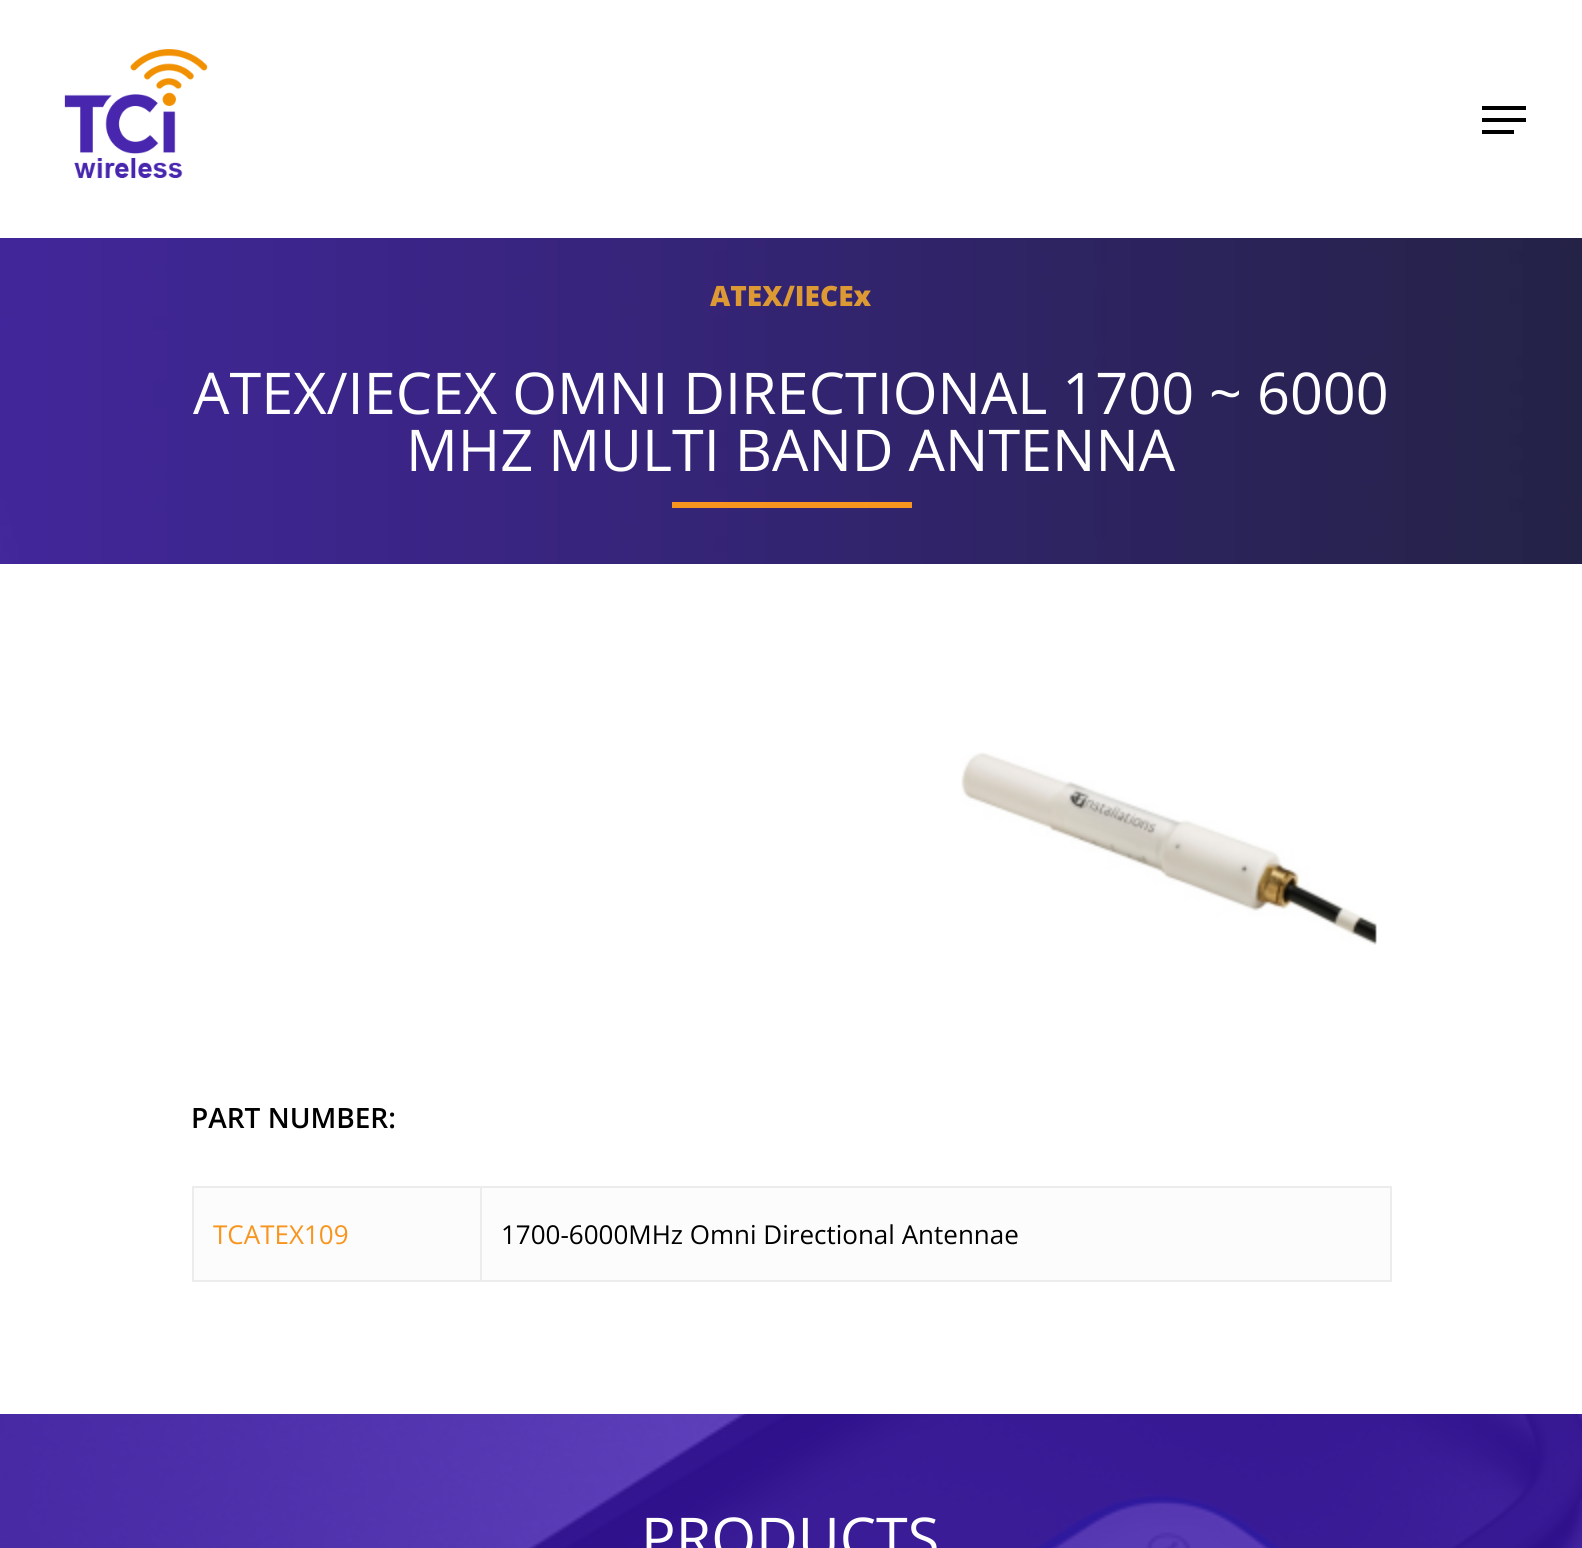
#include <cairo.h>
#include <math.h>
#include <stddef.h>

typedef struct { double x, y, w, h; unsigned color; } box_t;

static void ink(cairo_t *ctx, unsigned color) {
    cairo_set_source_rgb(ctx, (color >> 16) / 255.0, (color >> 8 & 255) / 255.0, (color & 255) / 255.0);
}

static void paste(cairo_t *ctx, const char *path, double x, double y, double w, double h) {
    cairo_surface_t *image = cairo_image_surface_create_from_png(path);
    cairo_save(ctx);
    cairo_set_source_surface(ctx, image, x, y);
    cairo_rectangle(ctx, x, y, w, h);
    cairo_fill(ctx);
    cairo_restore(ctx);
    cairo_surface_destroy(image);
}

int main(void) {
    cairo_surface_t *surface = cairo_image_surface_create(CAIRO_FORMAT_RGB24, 1582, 1548);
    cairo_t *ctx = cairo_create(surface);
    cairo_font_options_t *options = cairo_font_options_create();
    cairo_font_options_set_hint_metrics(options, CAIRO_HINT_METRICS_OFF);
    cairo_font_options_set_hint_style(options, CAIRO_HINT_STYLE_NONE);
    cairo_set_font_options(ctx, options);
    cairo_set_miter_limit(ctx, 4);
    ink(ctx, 0xFFFFFF);
    cairo_paint(ctx);
    paste(ctx, "media/1.png", 64, 49, 144, 129);
    {
        static const box_t items[] = {
            {1482, 106, 44, 4, 0x000000},
            {1482, 130, 32, 4, 0x000000},
            {1482, 118, 44, 4, 0x000000},
        };
        for (size_t i = 0; i < sizeof items / sizeof *items; i++) {
            ink(ctx, items[i].color);
            cairo_rectangle(ctx, items[i].x, items[i].y, items[i].w, items[i].h);
            cairo_fill(ctx);
        }
    }
    paste(ctx, "media/2.png", 0, 238, 1582, 326);
    cairo_select_font_face(ctx, "Open Sans ExtraBold", CAIRO_FONT_SLANT_NORMAL, CAIRO_FONT_WEIGHT_NORMAL);
    cairo_set_font_size(ctx, 28);
    ink(ctx, 0xDD9933);
    cairo_move_to(ctx, 710, 306);
    cairo_show_text(ctx, "ATEX/IECEx");
    cairo_select_font_face(ctx, "Open Sans", CAIRO_FONT_SLANT_NORMAL, CAIRO_FONT_WEIGHT_NORMAL);
    cairo_set_font_size(ctx, 57.6);
    ink(ctx, 0xFFFFFF);
    cairo_move_to(ctx, 193, 414);
    cairo_show_text(ctx, "ATEX/IECEX OMNI DIRECTIONAL 1700 ~ 6000");
    cairo_move_to(ctx, 406, 471);
    cairo_show_text(ctx, "MHZ MULTI BAND ANTENNA");
    ink(ctx, 0xF8951E);
    cairo_rectangle(ctx, 672, 502, 240, 6);
    cairo_fill(ctx);
    paste(ctx, "media/3.png", 961, 752, 416, 193);
    cairo_select_font_face(ctx, "Open Sans SemiBold", CAIRO_FONT_SLANT_NORMAL, CAIRO_FONT_WEIGHT_NORMAL);
    cairo_set_font_size(ctx, 28);
    ink(ctx, 0x000000);
    cairo_move_to(ctx, 191, 1128);
    cairo_show_text(ctx, "PART NUMBER:");
    {
        static const box_t items[] = {
            {192, 1186, 1200, 2, 0xECECEC},
            {194, 1188, 1196, 92, 0xFCFCFC},
            {1390, 1186, 2, 96, 0xECECEC},
            {480, 1280, 912, 2, 0xECECEC},
            {480, 1186, 2, 96, 0xECECEC},
            {192, 1280, 290, 2, 0xECECEC},
            {192, 1186, 2, 96, 0xECECEC},
        };
        for (size_t i = 0; i < sizeof items / sizeof *items; i++) {
            ink(ctx, items[i].color);
            cairo_rectangle(ctx, items[i].x, items[i].y, items[i].w, items[i].h);
            cairo_fill(ctx);
        }
    }
    cairo_select_font_face(ctx, "Open Sans", CAIRO_FONT_SLANT_NORMAL, CAIRO_FONT_WEIGHT_NORMAL);
    cairo_set_font_size(ctx, 26);
    ink(ctx, 0xF8951E);
    cairo_move_to(ctx, 213, 1244);
    cairo_show_text(ctx, "TCATEX109");
    ink(ctx, 0x000000);
    cairo_move_to(ctx, 501, 1244);
    cairo_show_text(ctx, "1700-6000MHz Omni Directional Antennae");
    paste(ctx, "media/4.png", 0, 1414, 1582, 134);
    cairo_set_font_size(ctx, 57.6);
    ink(ctx, 0xFFFFFF);
    cairo_move_to(ctx, 641, 1559);
    cairo_show_text(ctx, "PRODUCTS");
    cairo_surface_write_to_png(surface, "image.png");
    cairo_font_options_destroy(options);
    cairo_destroy(ctx);
    cairo_surface_destroy(surface);
    return 0;
}
